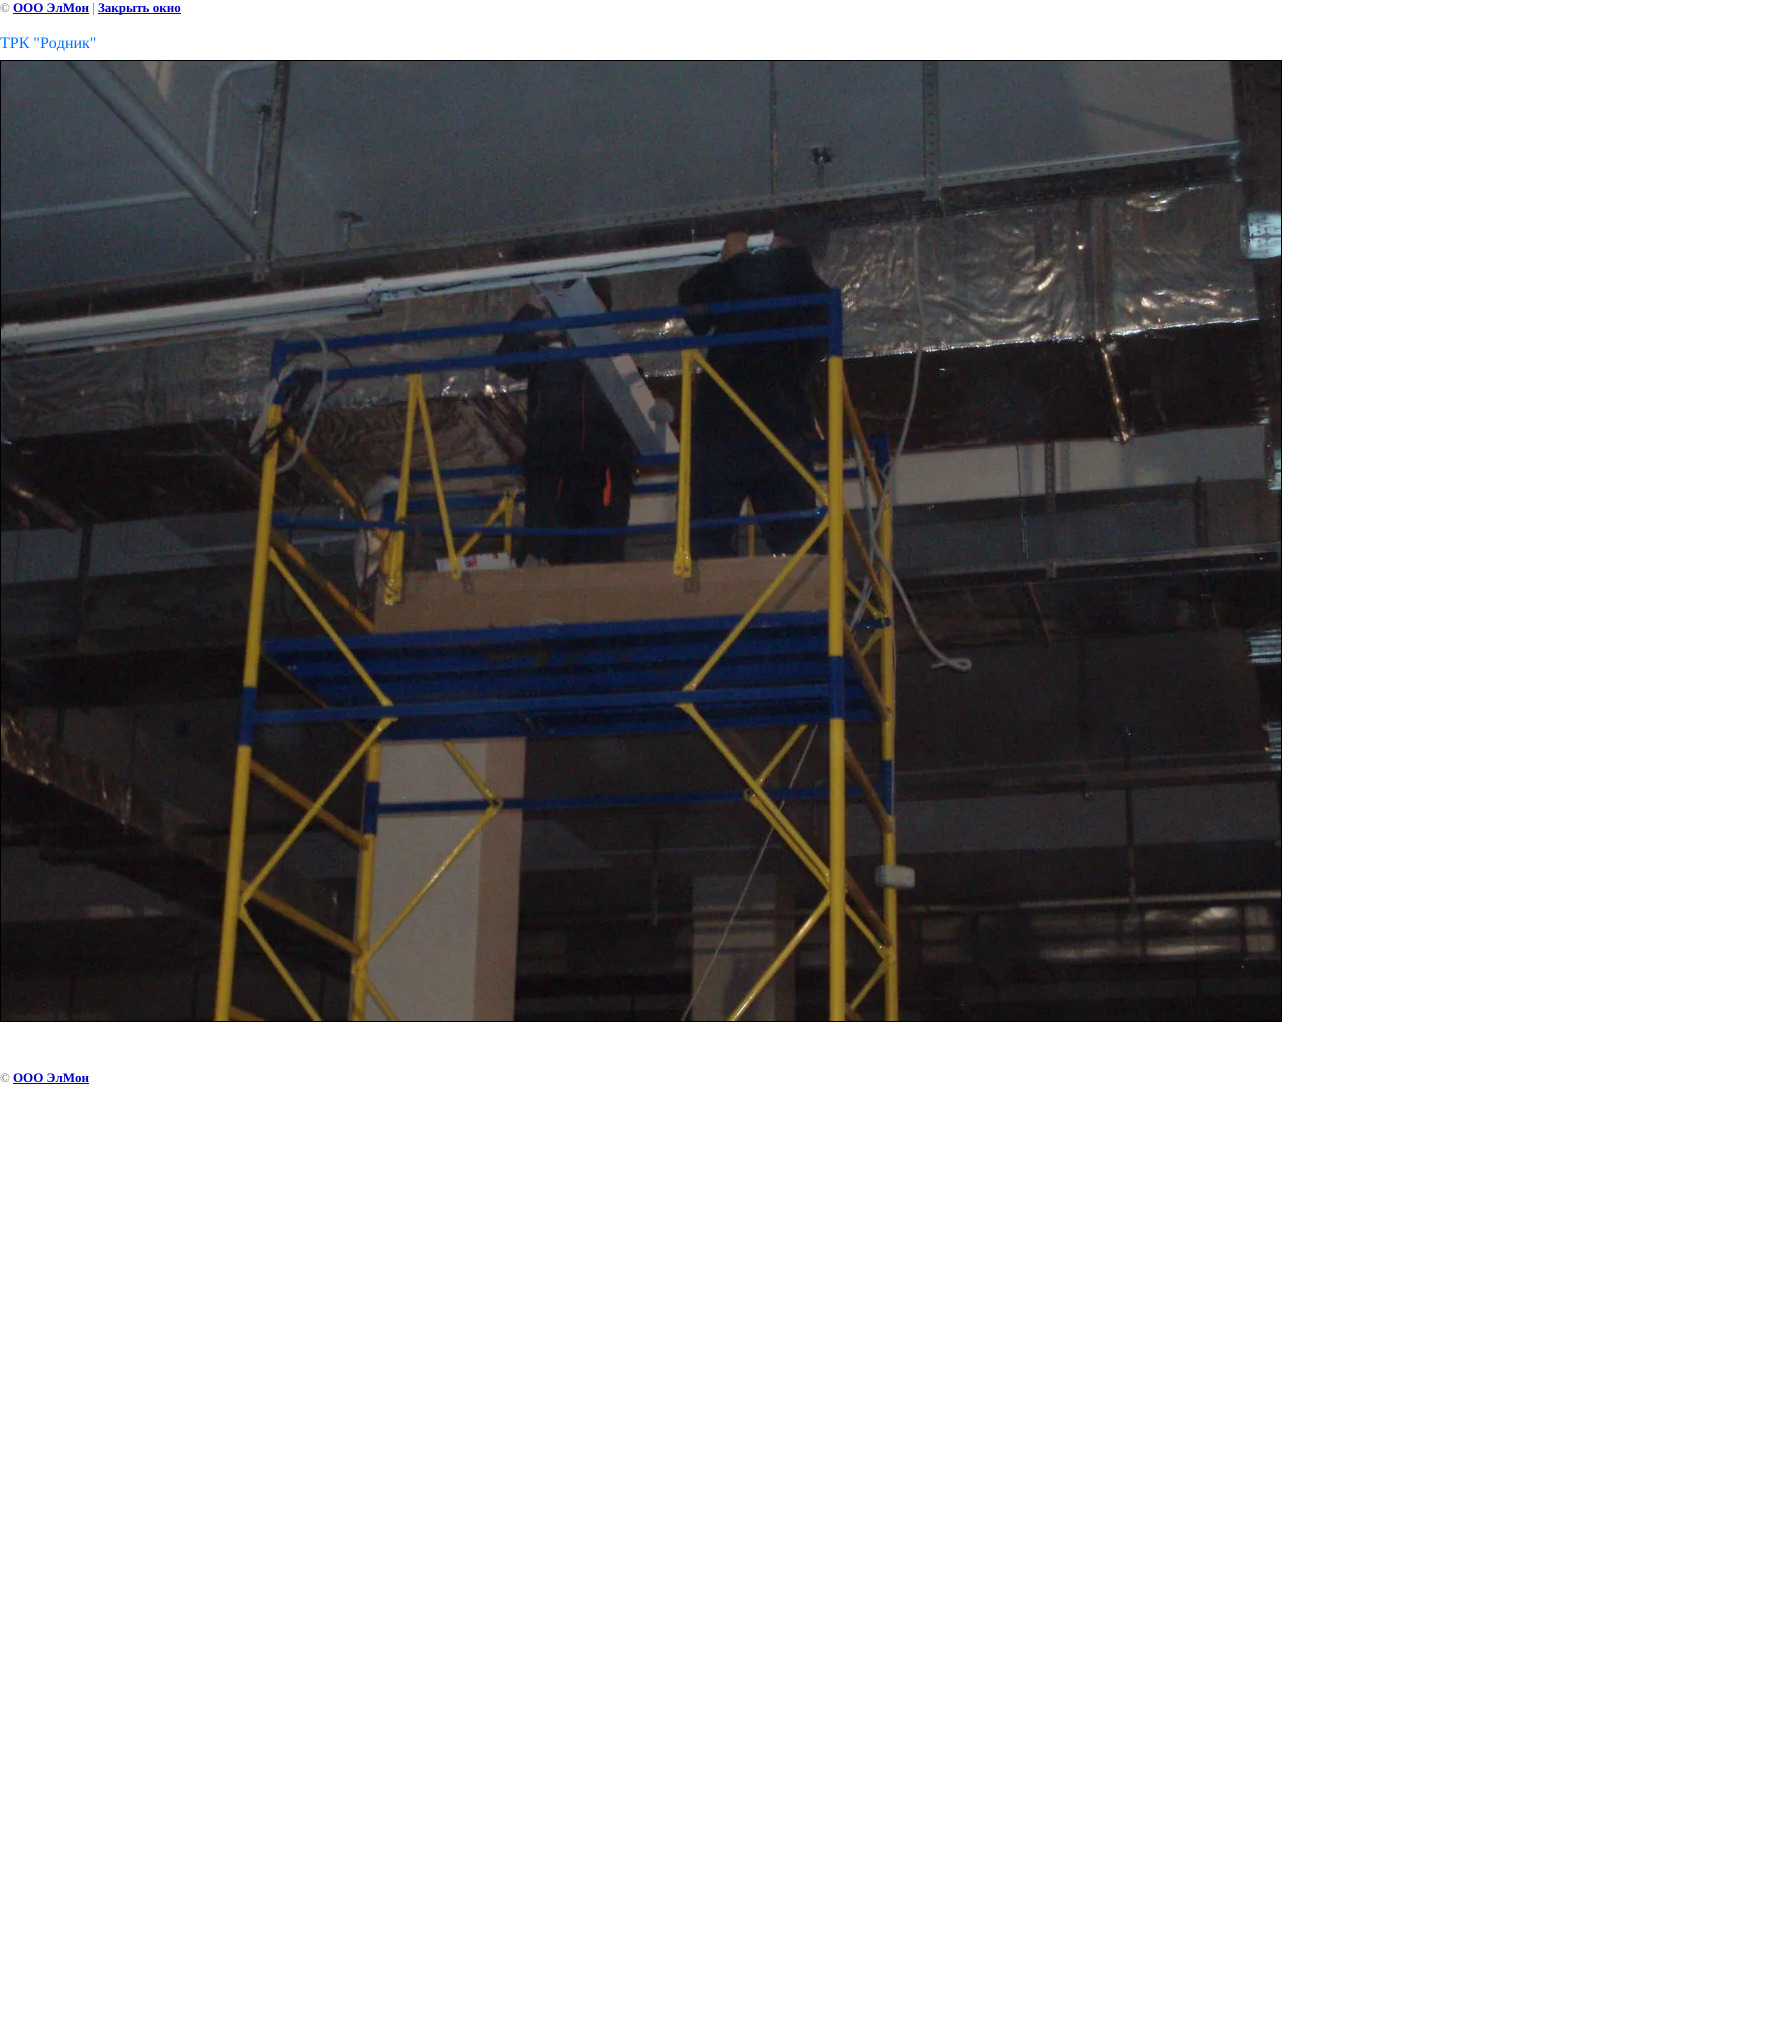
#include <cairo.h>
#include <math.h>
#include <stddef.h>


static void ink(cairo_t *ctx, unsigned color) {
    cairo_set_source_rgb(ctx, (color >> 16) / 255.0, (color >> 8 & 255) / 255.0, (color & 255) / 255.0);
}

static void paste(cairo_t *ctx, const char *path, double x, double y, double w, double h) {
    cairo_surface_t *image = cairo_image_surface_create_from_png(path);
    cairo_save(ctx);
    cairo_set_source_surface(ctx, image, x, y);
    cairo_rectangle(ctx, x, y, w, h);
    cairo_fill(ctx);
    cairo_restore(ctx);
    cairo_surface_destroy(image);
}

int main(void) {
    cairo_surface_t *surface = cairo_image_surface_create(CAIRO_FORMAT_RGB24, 1790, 2021);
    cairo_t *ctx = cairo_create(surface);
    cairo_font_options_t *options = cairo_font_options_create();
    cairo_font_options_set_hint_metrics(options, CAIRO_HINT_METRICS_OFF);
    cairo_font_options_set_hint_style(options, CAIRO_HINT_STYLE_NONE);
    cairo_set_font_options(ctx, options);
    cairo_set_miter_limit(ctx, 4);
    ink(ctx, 0xFFFFFF);
    cairo_paint(ctx);
    cairo_select_font_face(ctx, "Liberation Serif", CAIRO_FONT_SLANT_NORMAL, CAIRO_FONT_WEIGHT_NORMAL);
    cairo_set_font_size(ctx, 13);
    ink(ctx, 0x666666);
    cairo_move_to(ctx, 0, 12);
    cairo_show_text(ctx, "©");
    cairo_select_font_face(ctx, "Liberation Serif", CAIRO_FONT_SLANT_NORMAL, CAIRO_FONT_WEIGHT_BOLD);
    ink(ctx, 0x0000CC);
    cairo_move_to(ctx, 13, 12);
    cairo_show_text(ctx, "ООО ЭлМон");
    cairo_rectangle(ctx, 13, 13, 76, 1);
    cairo_fill(ctx);
    cairo_select_font_face(ctx, "Liberation Serif", CAIRO_FONT_SLANT_NORMAL, CAIRO_FONT_WEIGHT_NORMAL);
    ink(ctx, 0x666666);
    cairo_move_to(ctx, 92, 12);
    cairo_show_text(ctx, "|");
    ink(ctx, 0x0000CC);
    cairo_rectangle(ctx, 98, 13, 83, 1);
    cairo_fill(ctx);
    cairo_select_font_face(ctx, "Liberation Serif", CAIRO_FONT_SLANT_NORMAL, CAIRO_FONT_WEIGHT_BOLD);
    cairo_move_to(ctx, 98, 12);
    cairo_show_text(ctx, "Закрыть окно");
    cairo_select_font_face(ctx, "Liberation Serif", CAIRO_FONT_SLANT_NORMAL, CAIRO_FONT_WEIGHT_NORMAL);
    cairo_set_font_size(ctx, 16);
    ink(ctx, 0x0071F8);
    cairo_move_to(ctx, 0, 48);
    cairo_show_text(ctx, "ТРК \"Родник\"");
    cairo_rectangle(ctx, 0.5, 60.5, 1281, 961);
    ink(ctx, 0x000000);
    cairo_set_line_width(ctx, 1);
    cairo_stroke(ctx);
    paste(ctx, "media/1.png", 1, 61, 1280, 960);
    cairo_set_font_size(ctx, 13);
    ink(ctx, 0x666666);
    cairo_move_to(ctx, 0, 1082);
    cairo_show_text(ctx, "©");
    cairo_select_font_face(ctx, "Liberation Serif", CAIRO_FONT_SLANT_NORMAL, CAIRO_FONT_WEIGHT_BOLD);
    ink(ctx, 0x0000CC);
    cairo_move_to(ctx, 13, 1082);
    cairo_show_text(ctx, "ООО ЭлМон");
    cairo_rectangle(ctx, 13, 1083, 76, 1);
    cairo_fill(ctx);
    cairo_surface_write_to_png(surface, "image.png");
    cairo_font_options_destroy(options);
    cairo_destroy(ctx);
    cairo_surface_destroy(surface);
    return 0;
}
